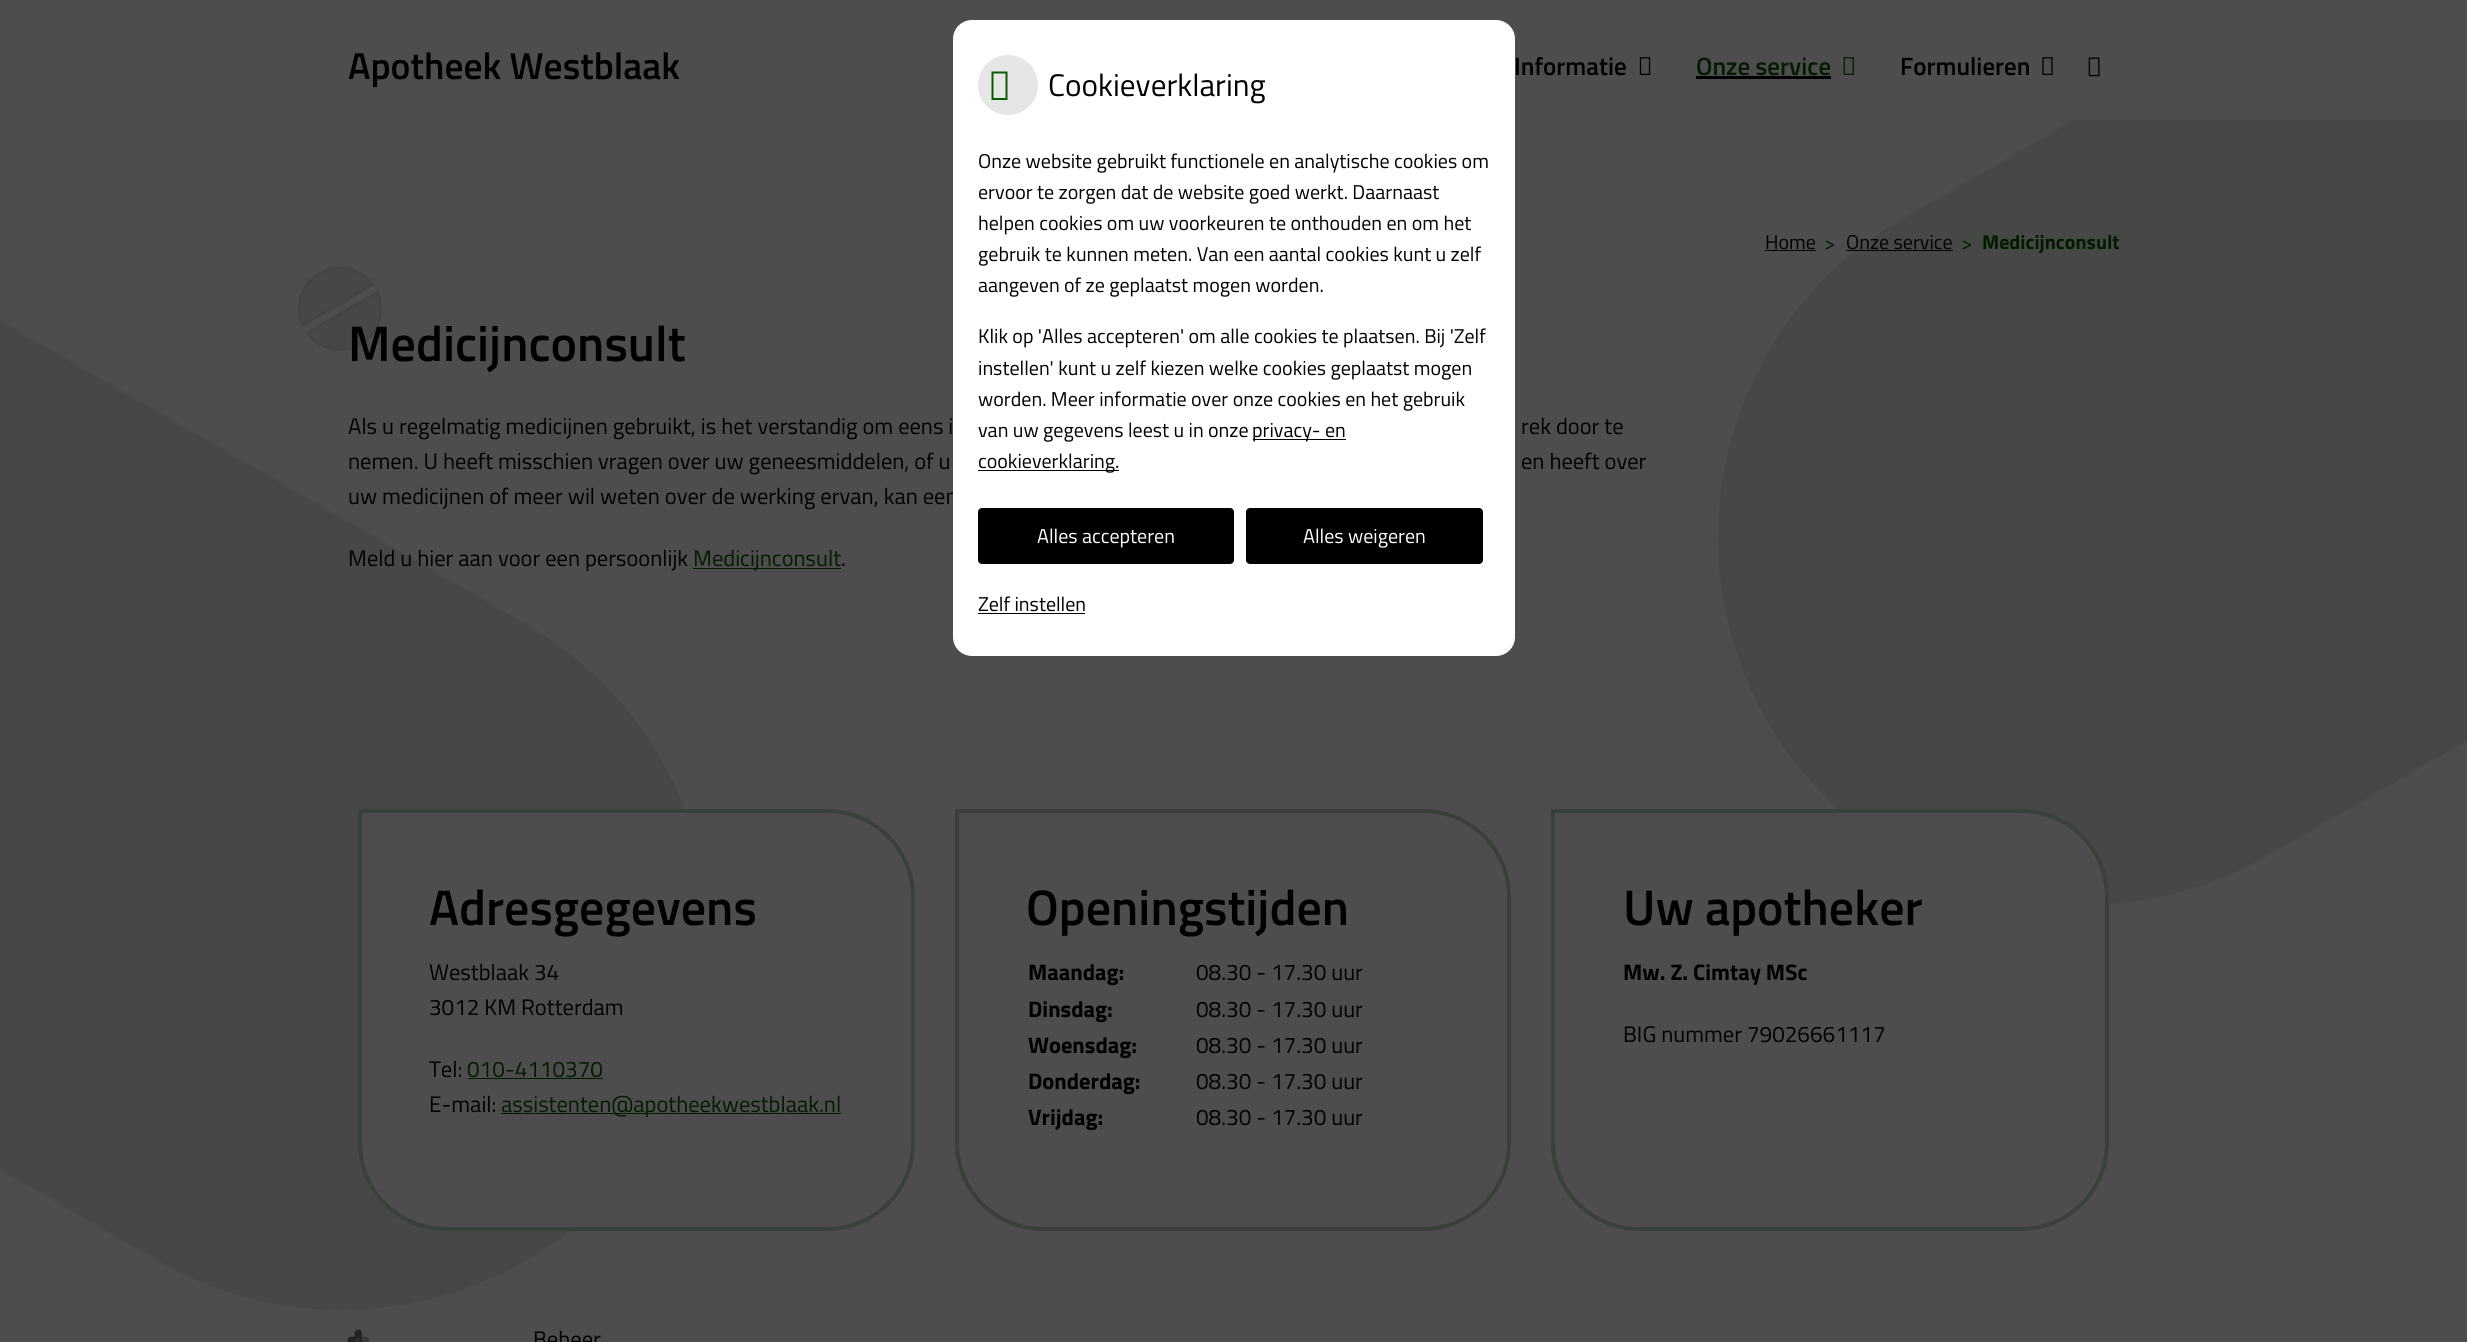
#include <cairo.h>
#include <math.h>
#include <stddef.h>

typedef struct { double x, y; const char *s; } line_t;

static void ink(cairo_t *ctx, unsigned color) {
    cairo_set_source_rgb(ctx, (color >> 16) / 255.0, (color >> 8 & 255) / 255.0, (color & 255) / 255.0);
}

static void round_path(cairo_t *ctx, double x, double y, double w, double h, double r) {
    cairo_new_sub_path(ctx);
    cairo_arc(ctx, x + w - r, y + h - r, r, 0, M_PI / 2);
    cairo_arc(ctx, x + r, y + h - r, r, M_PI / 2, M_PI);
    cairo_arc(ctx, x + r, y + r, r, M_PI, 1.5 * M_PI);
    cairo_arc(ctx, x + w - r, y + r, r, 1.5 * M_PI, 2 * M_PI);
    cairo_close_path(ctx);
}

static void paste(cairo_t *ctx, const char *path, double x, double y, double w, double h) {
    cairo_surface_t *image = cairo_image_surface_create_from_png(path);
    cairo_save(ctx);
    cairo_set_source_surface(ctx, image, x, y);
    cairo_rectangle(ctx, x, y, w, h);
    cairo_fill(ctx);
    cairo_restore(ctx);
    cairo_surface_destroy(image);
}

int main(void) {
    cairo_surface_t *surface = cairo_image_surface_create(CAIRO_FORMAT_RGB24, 2467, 1342);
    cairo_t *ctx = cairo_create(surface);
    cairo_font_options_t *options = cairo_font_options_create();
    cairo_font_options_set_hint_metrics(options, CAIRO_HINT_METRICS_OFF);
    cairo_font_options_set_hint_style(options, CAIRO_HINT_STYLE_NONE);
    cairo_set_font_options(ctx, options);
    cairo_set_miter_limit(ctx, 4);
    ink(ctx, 0x4D4D4D);
    cairo_paint(ctx);
    ink(ctx, 0x454845);
    cairo_new_path(ctx);
    cairo_move_to(ctx, 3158, 342);
    cairo_line_to(ctx, 2269, 855);
    cairo_curve_to(ctx, 2093, 957, 1869, 897, 1767, 721);
    cairo_curve_to(ctx, 1666, 545, 1726, 320, 1902, 219);
    cairo_line_to(ctx, 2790, -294);
    cairo_close_path(ctx);
    cairo_fill(ctx);
    ink(ctx, 0x4D4D4D);
    cairo_rectangle(ctx, 2263, 0, 204, 11);
    cairo_fill(ctx);
    cairo_rectangle(ctx, 2074, 11, 393, 109);
    cairo_fill(ctx);
    cairo_select_font_face(ctx, "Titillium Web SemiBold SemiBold", CAIRO_FONT_SLANT_NORMAL, CAIRO_FONT_WEIGHT_NORMAL);
    cairo_set_font_size(ctx, 37.5);
    ink(ctx, 0x000000);
    cairo_move_to(ctx, 348, 79);
    cairo_show_text(ctx, "Apotheek Westblaak");
    cairo_set_font_size(ctx, 25);
    cairo_move_to(ctx, 1514, 75);
    cairo_show_text(ctx, "Informatie");
    paste(ctx, "media/1.png", 1639, 57, 12, 18);
    ink(ctx, 0x031B00);
    cairo_move_to(ctx, 1696, 75);
    cairo_show_text(ctx, "Onze service");
    ink(ctx, 0x000000);
    cairo_rectangle(ctx, 1696, 76, 135, 3);
    cairo_fill(ctx);
    paste(ctx, "media/2.png", 1843, 57, 11, 18);
    cairo_move_to(ctx, 1900, 75);
    cairo_show_text(ctx, "Formulieren");
    paste(ctx, "media/3.png", 2042, 57, 11, 18);
    paste(ctx, "media/4.png", 2088, 57, 12, 20);
    ink(ctx, 0x454845);
    cairo_new_path(ctx);
    cairo_move_to(ctx, -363, 111);
    cairo_line_to(ctx, 526, 624);
    cairo_curve_to(ctx, 702, 726, 762, 950, 660, 1126);
    cairo_curve_to(ctx, 559, 1302, 334, 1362, 158, 1261);
    cairo_line_to(ctx, -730, 748);
    cairo_close_path(ctx);
    cairo_fill(ctx);
    cairo_select_font_face(ctx, "Titillium Web", CAIRO_FONT_SLANT_NORMAL, CAIRO_FONT_WEIGHT_NORMAL);
    cairo_set_font_size(ctx, 22.5);
    ink(ctx, 0x000000);
    cairo_move_to(ctx, 348, 504);
    cairo_show_text(ctx, "uw medicijnen of meer wil weten over de werking ervan, kan een");
    ink(ctx, 0xFFFFFF);
    round_path(ctx, 953, 20, 562, 636, 19);
    cairo_fill(ctx);
    ink(ctx, 0xE6E6E6);
    cairo_arc(ctx, 1008, 85, 30, 0, 2 * M_PI);
    cairo_fill(ctx);
    ink(ctx, 0x0A5B00);
    cairo_new_path(ctx);
    cairo_move_to(ctx, 991.5, 100);
    cairo_line_to(ctx, 991.5, 71.5);
    cairo_line_to(ctx, 1007.5, 71.5);
    cairo_line_to(ctx, 1007.5, 100);
    cairo_close_path(ctx);
    cairo_move_to(ctx, 993.5, 98);
    cairo_line_to(ctx, 1005.5, 98);
    cairo_line_to(ctx, 1005.5, 73.5);
    cairo_line_to(ctx, 993.5, 73.5);
    cairo_close_path(ctx);
    cairo_fill(ctx);
    cairo_set_font_size(ctx, 31.25);
    ink(ctx, 0x000000);
    cairo_move_to(ctx, 1048, 96);
    cairo_show_text(ctx, "Cookieverklaring");
    cairo_set_font_size(ctx, 20);
    {
        static const line_t items[] = {
            {978, 168, "Onze website gebruikt functionele en analytische cookies om"},
            {978, 199, "ervoor te zorgen dat de website goed werkt. Daarnaast"},
            {978, 230, "helpen cookies om uw voorkeuren te onthouden en om het"},
            {978, 261, "gebruik te kunnen meten. Van een aantal cookies kunt u zelf"},
            {978, 292, "aangeven of ze geplaatst mogen worden."},
            {978, 343, "Klik op 'Alles accepteren' om alle cookies te plaatsen. Bij 'Zelf"},
            {978, 375, "instellen' kunt u zelf kiezen welke cookies geplaatst mogen"},
            {978, 406, "worden. Meer informatie over onze cookies en het gebruik"},
            {978, 437, "van uw gegevens leest u in onze"},
        };
        for (size_t i = 0; i < sizeof items / sizeof *items; i++) {
            cairo_move_to(ctx, items[i].x, items[i].y);
            cairo_show_text(ctx, items[i].s);
        }
    }
    cairo_rectangle(ctx, 1253, 439, 93, 1);
    cairo_fill(ctx);
    cairo_move_to(ctx, 1252, 437);
    cairo_show_text(ctx, "privacy- en");
    cairo_rectangle(ctx, 978, 470, 141, 1);
    cairo_fill(ctx);
    cairo_move_to(ctx, 978, 468);
    cairo_show_text(ctx, "cookieverklaring.");
    round_path(ctx, 978, 508, 256, 56, 4);
    cairo_fill(ctx);
    ink(ctx, 0xFFFFFF);
    cairo_move_to(ctx, 1037, 543);
    cairo_show_text(ctx, "Alles accepteren");
    ink(ctx, 0x000000);
    round_path(ctx, 1246, 508, 237, 56, 4);
    cairo_fill(ctx);
    ink(ctx, 0xFFFFFF);
    cairo_move_to(ctx, 1303, 543);
    cairo_show_text(ctx, "Alles weigeren");
    ink(ctx, 0x000000);
    cairo_move_to(ctx, 978, 611);
    cairo_show_text(ctx, "Zelf instellen");
    cairo_rectangle(ctx, 978, 613, 107, 1);
    cairo_fill(ctx);
    cairo_move_to(ctx, 1765, 249);
    cairo_show_text(ctx, "Home");
    cairo_rectangle(ctx, 1765, 250, 51, 1);
    cairo_fill(ctx);
    ink(ctx, 0x031B00);
    cairo_move_to(ctx, 1824, 250);
    cairo_show_text(ctx, ">");
    ink(ctx, 0x000000);
    cairo_move_to(ctx, 1846, 249);
    cairo_show_text(ctx, "Onze service");
    cairo_rectangle(ctx, 1846, 250, 107, 1);
    cairo_fill(ctx);
    ink(ctx, 0x031B00);
    cairo_move_to(ctx, 1961, 250);
    cairo_show_text(ctx, ">");
    cairo_select_font_face(ctx, "Titillium Web", CAIRO_FONT_SLANT_NORMAL, CAIRO_FONT_WEIGHT_BOLD);
    cairo_move_to(ctx, 1982, 249);
    cairo_show_text(ctx, "Medicijnconsult");
    paste(ctx, "media/5.png", 298, 266, 85, 85);
    cairo_select_font_face(ctx, "Titillium Web SemiBold SemiBold", CAIRO_FONT_SLANT_NORMAL, CAIRO_FONT_WEIGHT_NORMAL);
    cairo_set_font_size(ctx, 50);
    ink(ctx, 0x000000);
    cairo_move_to(ctx, 348, 361);
    cairo_show_text(ctx, "Medicijnconsult");
    cairo_select_font_face(ctx, "Titillium Web", CAIRO_FONT_SLANT_NORMAL, CAIRO_FONT_WEIGHT_NORMAL);
    cairo_set_font_size(ctx, 22.5);
    {
        static const line_t items[] = {
            {348, 434, "Als u regelmatig medicijnen gebruikt, is het verstandig om eens i"},
            {1521, 434, "rek door te"},
            {348, 469, "nemen. U heeft misschien vragen over uw geneesmiddelen, of u"},
            {1521, 469, "en heeft over"},
            {348, 566, "Meld u hier aan voor een persoonlijk"},
        };
        for (size_t i = 0; i < sizeof items / sizeof *items; i++) {
            cairo_move_to(ctx, items[i].x, items[i].y);
            cairo_show_text(ctx, items[i].s);
        }
    }
    ink(ctx, 0x031B00);
    cairo_rectangle(ctx, 693, 568, 148, 1);
    cairo_fill(ctx);
    cairo_move_to(ctx, 693, 566);
    cairo_show_text(ctx, "Medicijnconsult");
    ink(ctx, 0x000000);
    cairo_move_to(ctx, 841, 566);
    cairo_show_text(ctx, ".");
    ink(ctx, 0x4D4D4D);
    cairo_new_path(ctx);
    cairo_move_to(ctx, 358, 809);
    cairo_line_to(ctx, 827, 809);
    cairo_curve_to(ctx, 875.5, 809, 915, 848.5, 915, 897);
    cairo_line_to(ctx, 915, 1143);
    cairo_curve_to(ctx, 915, 1191.5, 875.5, 1231, 827, 1231);
    cairo_line_to(ctx, 446, 1231);
    cairo_curve_to(ctx, 397.5, 1231, 358, 1191.5, 358, 1143);
    cairo_close_path(ctx);
    cairo_fill(ctx);
    cairo_new_path(ctx);
    cairo_move_to(ctx, 360, 811);
    cairo_line_to(ctx, 827, 811);
    cairo_curve_to(ctx, 874.5, 811, 913, 849.5, 913, 897);
    cairo_line_to(ctx, 913, 1143);
    cairo_curve_to(ctx, 913, 1190.5, 874.5, 1229, 827, 1229);
    cairo_line_to(ctx, 446, 1229);
    cairo_curve_to(ctx, 398.5, 1229, 360, 1190.5, 360, 1143);
    cairo_close_path(ctx);
    cairo_set_source_rgba(ctx, 0.012, 0.106, 0, 0.25);
    cairo_set_line_width(ctx, 4);
    cairo_stroke(ctx);
    cairo_select_font_face(ctx, "Titillium Web SemiBold SemiBold", CAIRO_FONT_SLANT_NORMAL, CAIRO_FONT_WEIGHT_NORMAL);
    cairo_set_font_size(ctx, 50);
    ink(ctx, 0x000000);
    cairo_move_to(ctx, 429, 925);
    cairo_show_text(ctx, "Adresgegevens");
    cairo_select_font_face(ctx, "Titillium Web", CAIRO_FONT_SLANT_NORMAL, CAIRO_FONT_WEIGHT_NORMAL);
    cairo_set_font_size(ctx, 22.5);
    {
        static const line_t items[] = {
            {429, 980, "Westblaak 34"},
            {429, 1015, "3012 KM Rotterdam"},
            {429, 1077, "Tel:"},
        };
        for (size_t i = 0; i < sizeof items / sizeof *items; i++) {
            cairo_move_to(ctx, items[i].x, items[i].y);
            cairo_show_text(ctx, items[i].s);
        }
    }
    ink(ctx, 0x031B00);
    cairo_move_to(ctx, 467, 1077);
    cairo_show_text(ctx, "010-4110370");
    cairo_rectangle(ctx, 468, 1078, 135, 1);
    cairo_fill(ctx);
    ink(ctx, 0x000000);
    cairo_move_to(ctx, 429, 1112);
    cairo_show_text(ctx, "E-mail:");
    ink(ctx, 0x031B00);
    cairo_rectangle(ctx, 501, 1113, 340, 1);
    cairo_fill(ctx);
    cairo_move_to(ctx, 501, 1112);
    cairo_show_text(ctx, "assistenten@apotheekwestblaak.nl");
    cairo_new_path(ctx);
    cairo_move_to(ctx, 957, 811);
    cairo_line_to(ctx, 1423, 811);
    cairo_curve_to(ctx, 1470.5, 811, 1509, 849.5, 1509, 897);
    cairo_line_to(ctx, 1509, 1143);
    cairo_curve_to(ctx, 1509, 1190.5, 1470.5, 1229, 1423, 1229);
    cairo_line_to(ctx, 1043, 1229);
    cairo_curve_to(ctx, 995.5, 1229, 957, 1190.5, 957, 1143);
    cairo_close_path(ctx);
    ink(ctx, 0x3A4039);
    cairo_stroke(ctx);
    cairo_select_font_face(ctx, "Titillium Web SemiBold SemiBold", CAIRO_FONT_SLANT_NORMAL, CAIRO_FONT_WEIGHT_NORMAL);
    cairo_set_font_size(ctx, 50);
    ink(ctx, 0x000000);
    cairo_move_to(ctx, 1026, 925);
    cairo_show_text(ctx, "Openingstijden");
    cairo_select_font_face(ctx, "Titillium Web", CAIRO_FONT_SLANT_NORMAL, CAIRO_FONT_WEIGHT_BOLD);
    cairo_set_font_size(ctx, 22.5);
    cairo_move_to(ctx, 1028, 980);
    cairo_show_text(ctx, "Maandag:");
    cairo_select_font_face(ctx, "Titillium Web", CAIRO_FONT_SLANT_NORMAL, CAIRO_FONT_WEIGHT_NORMAL);
    cairo_move_to(ctx, 1196, 980);
    cairo_show_text(ctx, "08.30 - 17.30 uur");
    cairo_select_font_face(ctx, "Titillium Web", CAIRO_FONT_SLANT_NORMAL, CAIRO_FONT_WEIGHT_BOLD);
    cairo_move_to(ctx, 1028, 1017);
    cairo_show_text(ctx, "Dinsdag:");
    cairo_select_font_face(ctx, "Titillium Web", CAIRO_FONT_SLANT_NORMAL, CAIRO_FONT_WEIGHT_NORMAL);
    cairo_move_to(ctx, 1196, 1017);
    cairo_show_text(ctx, "08.30 - 17.30 uur");
    cairo_select_font_face(ctx, "Titillium Web", CAIRO_FONT_SLANT_NORMAL, CAIRO_FONT_WEIGHT_BOLD);
    cairo_move_to(ctx, 1028, 1053);
    cairo_show_text(ctx, "Woensdag:");
    cairo_select_font_face(ctx, "Titillium Web", CAIRO_FONT_SLANT_NORMAL, CAIRO_FONT_WEIGHT_NORMAL);
    cairo_move_to(ctx, 1196, 1053);
    cairo_show_text(ctx, "08.30 - 17.30 uur");
    cairo_select_font_face(ctx, "Titillium Web", CAIRO_FONT_SLANT_NORMAL, CAIRO_FONT_WEIGHT_BOLD);
    cairo_move_to(ctx, 1028, 1089);
    cairo_show_text(ctx, "Donderdag:");
    cairo_select_font_face(ctx, "Titillium Web", CAIRO_FONT_SLANT_NORMAL, CAIRO_FONT_WEIGHT_NORMAL);
    cairo_move_to(ctx, 1196, 1089);
    cairo_show_text(ctx, "08.30 - 17.30 uur");
    cairo_select_font_face(ctx, "Titillium Web", CAIRO_FONT_SLANT_NORMAL, CAIRO_FONT_WEIGHT_BOLD);
    cairo_move_to(ctx, 1028, 1125);
    cairo_show_text(ctx, "Vrijdag:");
    cairo_select_font_face(ctx, "Titillium Web", CAIRO_FONT_SLANT_NORMAL, CAIRO_FONT_WEIGHT_NORMAL);
    cairo_move_to(ctx, 1196, 1125);
    cairo_show_text(ctx, "08.30 - 17.30 uur");
    ink(ctx, 0x4D4D4D);
    cairo_new_path(ctx);
    cairo_move_to(ctx, 1551, 809);
    cairo_line_to(ctx, 2021, 809);
    cairo_curve_to(ctx, 2069.5, 809, 2109, 848.5, 2109, 897);
    cairo_line_to(ctx, 2109, 1143);
    cairo_curve_to(ctx, 2109, 1191.5, 2069.5, 1231, 2021, 1231);
    cairo_line_to(ctx, 1639, 1231);
    cairo_curve_to(ctx, 1590.5, 1231, 1551, 1191.5, 1551, 1143);
    cairo_close_path(ctx);
    cairo_fill(ctx);
    cairo_new_path(ctx);
    cairo_move_to(ctx, 1553, 811);
    cairo_line_to(ctx, 2021, 811);
    cairo_curve_to(ctx, 2068.5, 811, 2107, 849.5, 2107, 897);
    cairo_line_to(ctx, 2107, 1143);
    cairo_curve_to(ctx, 2107, 1190.5, 2068.5, 1229, 2021, 1229);
    cairo_line_to(ctx, 1639, 1229);
    cairo_curve_to(ctx, 1591.5, 1229, 1553, 1190.5, 1553, 1143);
    cairo_close_path(ctx);
    cairo_set_source_rgba(ctx, 0.012, 0.106, 0, 0.25);
    cairo_stroke(ctx);
    cairo_select_font_face(ctx, "Titillium Web SemiBold SemiBold", CAIRO_FONT_SLANT_NORMAL, CAIRO_FONT_WEIGHT_NORMAL);
    cairo_set_font_size(ctx, 50);
    ink(ctx, 0x000000);
    cairo_move_to(ctx, 1623, 925);
    cairo_show_text(ctx, "Uw apotheker");
    cairo_select_font_face(ctx, "Titillium Web", CAIRO_FONT_SLANT_NORMAL, CAIRO_FONT_WEIGHT_BOLD);
    cairo_set_font_size(ctx, 22.5);
    cairo_move_to(ctx, 1623, 980);
    cairo_show_text(ctx, "Mw. Z. Cimtay MSc");
    cairo_select_font_face(ctx, "Titillium Web", CAIRO_FONT_SLANT_NORMAL, CAIRO_FONT_WEIGHT_NORMAL);
    cairo_move_to(ctx, 1623, 1042);
    cairo_show_text(ctx, "BIG nummer 79026661117");
    paste(ctx, "media/6.png", 347, 1329, 22, 13);
    cairo_move_to(ctx, 533, 1347);
    cairo_show_text(ctx, "Beheer");
    cairo_surface_write_to_png(surface, "image.png");
    cairo_font_options_destroy(options);
    cairo_destroy(ctx);
    cairo_surface_destroy(surface);
    return 0;
}
